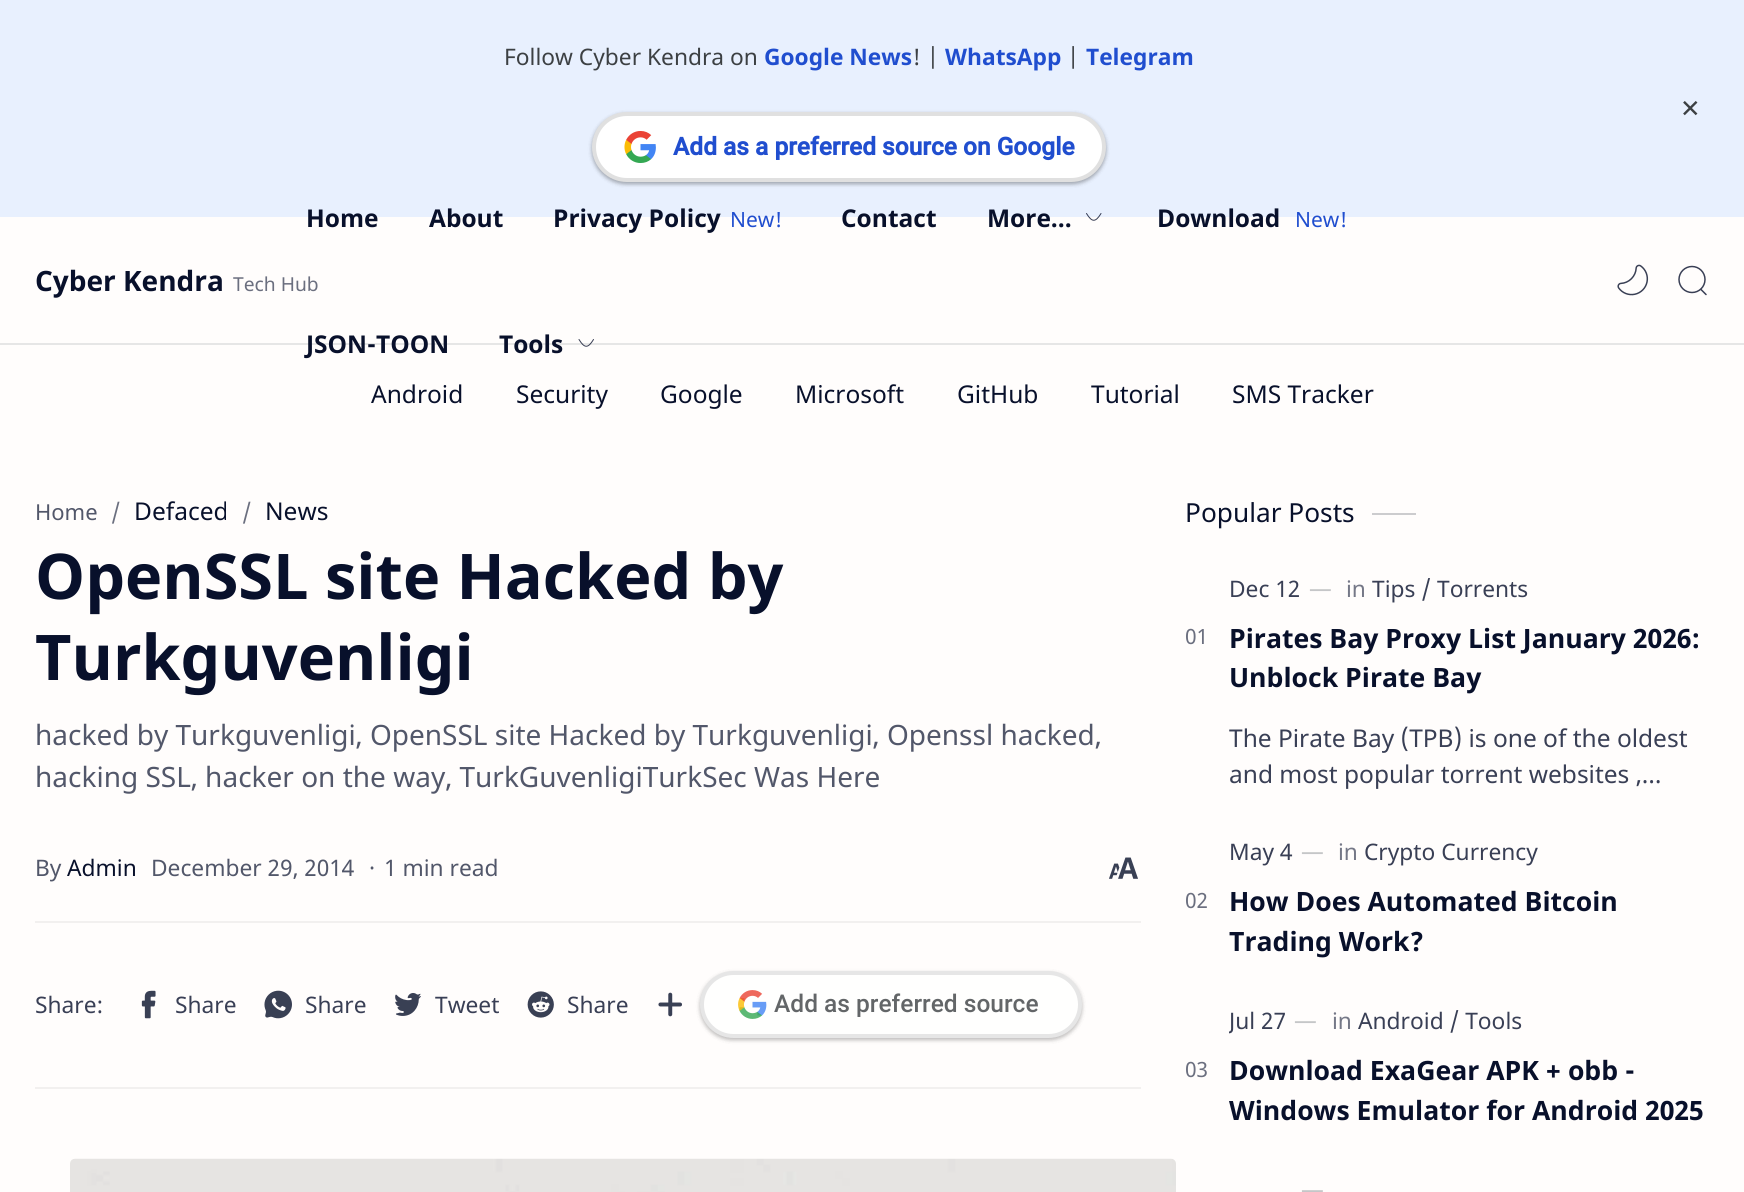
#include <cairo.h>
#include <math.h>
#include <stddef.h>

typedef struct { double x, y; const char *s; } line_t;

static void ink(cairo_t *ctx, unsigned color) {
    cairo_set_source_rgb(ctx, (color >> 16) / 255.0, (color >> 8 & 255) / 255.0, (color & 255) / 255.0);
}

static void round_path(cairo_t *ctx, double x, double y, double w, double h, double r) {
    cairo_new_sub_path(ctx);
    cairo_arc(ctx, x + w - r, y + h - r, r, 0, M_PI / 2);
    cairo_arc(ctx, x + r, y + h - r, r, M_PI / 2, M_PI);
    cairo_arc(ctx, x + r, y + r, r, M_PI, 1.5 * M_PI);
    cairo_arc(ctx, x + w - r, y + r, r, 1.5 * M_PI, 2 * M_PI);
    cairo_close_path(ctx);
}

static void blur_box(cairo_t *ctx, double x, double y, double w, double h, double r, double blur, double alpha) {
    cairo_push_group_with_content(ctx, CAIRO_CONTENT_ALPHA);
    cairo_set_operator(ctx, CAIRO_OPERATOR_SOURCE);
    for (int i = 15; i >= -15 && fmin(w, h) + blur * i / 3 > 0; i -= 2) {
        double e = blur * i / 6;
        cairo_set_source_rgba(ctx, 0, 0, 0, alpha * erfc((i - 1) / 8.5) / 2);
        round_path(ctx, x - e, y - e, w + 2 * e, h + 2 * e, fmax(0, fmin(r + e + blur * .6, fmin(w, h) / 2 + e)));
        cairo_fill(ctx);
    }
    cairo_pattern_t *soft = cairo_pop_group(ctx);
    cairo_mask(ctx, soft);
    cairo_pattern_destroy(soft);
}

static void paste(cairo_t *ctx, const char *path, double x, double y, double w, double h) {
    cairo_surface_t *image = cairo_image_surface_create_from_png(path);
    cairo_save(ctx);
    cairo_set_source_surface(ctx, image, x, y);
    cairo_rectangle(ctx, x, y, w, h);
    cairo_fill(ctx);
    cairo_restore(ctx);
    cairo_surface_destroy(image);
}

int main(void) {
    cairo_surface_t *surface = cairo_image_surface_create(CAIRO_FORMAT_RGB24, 1744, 1192);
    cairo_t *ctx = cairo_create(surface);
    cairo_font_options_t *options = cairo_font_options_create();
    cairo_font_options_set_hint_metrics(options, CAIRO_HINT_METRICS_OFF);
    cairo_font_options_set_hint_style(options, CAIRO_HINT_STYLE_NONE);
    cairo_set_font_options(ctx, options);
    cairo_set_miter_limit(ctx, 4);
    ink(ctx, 0xFFFDFC);
    cairo_paint(ctx);
    ink(ctx, 0xE8F0FE);
    cairo_rectangle(ctx, 0, 0, 1744, 217);
    cairo_fill(ctx);
    cairo_select_font_face(ctx, "Noto Sans", CAIRO_FONT_SLANT_NORMAL, CAIRO_FONT_WEIGHT_NORMAL);
    cairo_set_font_size(ctx, 22.75);
    ink(ctx, 0x3C4043);
    cairo_move_to(ctx, 504, 65);
    cairo_show_text(ctx, "Follow Cyber Kendra on");
    cairo_select_font_face(ctx, "Noto Sans", CAIRO_FONT_SLANT_NORMAL, CAIRO_FONT_WEIGHT_BOLD);
    ink(ctx, 0x204ECF);
    cairo_move_to(ctx, 764, 65);
    cairo_show_text(ctx, "Google News");
    cairo_select_font_face(ctx, "Noto Sans", CAIRO_FONT_SLANT_NORMAL, CAIRO_FONT_WEIGHT_NORMAL);
    ink(ctx, 0x3C4043);
    cairo_move_to(ctx, 912, 65);
    cairo_show_text(ctx, "! |");
    cairo_select_font_face(ctx, "Noto Sans", CAIRO_FONT_SLANT_NORMAL, CAIRO_FONT_WEIGHT_BOLD);
    ink(ctx, 0x204ECF);
    cairo_move_to(ctx, 945, 65);
    cairo_show_text(ctx, "WhatsApp");
    cairo_select_font_face(ctx, "Noto Sans", CAIRO_FONT_SLANT_NORMAL, CAIRO_FONT_WEIGHT_NORMAL);
    ink(ctx, 0x3C4043);
    cairo_move_to(ctx, 1067, 65);
    cairo_show_text(ctx, "|");
    cairo_select_font_face(ctx, "Noto Sans", CAIRO_FONT_SLANT_NORMAL, CAIRO_FONT_WEIGHT_BOLD);
    ink(ctx, 0x204ECF);
    cairo_move_to(ctx, 1086, 65);
    cairo_show_text(ctx, "Telegram");
    ink(ctx, 0x000000);
    blur_box(ctx, 592, 114, 514, 70, 35, 2, 0.24);
    blur_box(ctx, 592, 114, 514, 70, 35, 2.5, 0.12);
    ink(ctx, 0xFFFFFF);
    round_path(ctx, 594, 114, 510, 66, 33);
    cairo_fill_preserve(ctx);
    ink(ctx, 0xE0E0E0);
    cairo_set_line_width(ctx, 4);
    cairo_stroke(ctx);
    paste(ctx, "media/1.png", 624, 131, 32, 32);
    cairo_select_font_face(ctx, "Roboto", CAIRO_FONT_SLANT_NORMAL, CAIRO_FONT_WEIGHT_BOLD);
    cairo_set_font_size(ctx, 24.5);
    ink(ctx, 0x204ECF);
    cairo_move_to(ctx, 673, 155);
    cairo_show_text(ctx, "Add as a preferred source on Google");
    cairo_select_font_face(ctx, "DejaVu Sans", CAIRO_FONT_SLANT_NORMAL, CAIRO_FONT_WEIGHT_NORMAL);
    ink(ctx, 0x3C4043);
    cairo_move_to(ctx, 1680, 117);
    cairo_show_text(ctx, "✕");
    ink(ctx, 0xE6E6E6);
    cairo_rectangle(ctx, 0, 343, 1744, 2);
    cairo_fill(ctx);
    cairo_select_font_face(ctx, "Noto Sans", CAIRO_FONT_SLANT_NORMAL, CAIRO_FONT_WEIGHT_BOLD);
    cairo_set_font_size(ctx, 28);
    ink(ctx, 0x08102B);
    cairo_move_to(ctx, 35, 291);
    cairo_show_text(ctx, "Cyber Kendra");
    cairo_select_font_face(ctx, "Noto Sans", CAIRO_FONT_SLANT_NORMAL, CAIRO_FONT_WEIGHT_NORMAL);
    cairo_set_font_size(ctx, 19.25);
    ink(ctx, 0x6B6F7F);
    cairo_move_to(ctx, 233, 291);
    cairo_show_text(ctx, "Tech Hub");
    cairo_select_font_face(ctx, "Noto Sans", CAIRO_FONT_SLANT_NORMAL, CAIRO_FONT_WEIGHT_BOLD);
    cairo_set_font_size(ctx, 24.5);
    ink(ctx, 0x08102B);
    {
        static const line_t items[] = {
            {306, 227, "Home"},
            {429, 227, "About"},
            {553, 227, "Privacy Policy"},
        };
        for (size_t i = 0; i < sizeof items / sizeof *items; i++) {
            cairo_move_to(ctx, items[i].x, items[i].y);
            cairo_show_text(ctx, items[i].s);
        }
    }
    cairo_select_font_face(ctx, "Noto Sans", CAIRO_FONT_SLANT_NORMAL, CAIRO_FONT_WEIGHT_NORMAL);
    cairo_set_font_size(ctx, 21);
    ink(ctx, 0x204ECF);
    cairo_move_to(ctx, 730, 227);
    cairo_show_text(ctx, "New!");
    cairo_select_font_face(ctx, "Noto Sans", CAIRO_FONT_SLANT_NORMAL, CAIRO_FONT_WEIGHT_BOLD);
    cairo_set_font_size(ctx, 24.5);
    ink(ctx, 0x08102B);
    cairo_move_to(ctx, 841, 227);
    cairo_show_text(ctx, "Contact");
    cairo_move_to(ctx, 987, 227);
    cairo_show_text(ctx, "More...");
    cairo_new_path(ctx);
    cairo_move_to(ctx, 1101, 213.5);
    cairo_curve_to(ctx, 1095.5, 222.5, 1092, 222.5, 1086.5, 213.5);
    cairo_set_source_rgba(ctx, 0.031, 0.063, 0.169, 0.8);
    cairo_set_line_width(ctx, 1);
    cairo_set_line_cap(ctx, CAIRO_LINE_CAP_ROUND);
    cairo_set_line_join(ctx, CAIRO_LINE_JOIN_ROUND);
    cairo_stroke(ctx);
    ink(ctx, 0x08102B);
    cairo_move_to(ctx, 1157, 227);
    cairo_show_text(ctx, "Download");
    cairo_select_font_face(ctx, "Noto Sans", CAIRO_FONT_SLANT_NORMAL, CAIRO_FONT_WEIGHT_NORMAL);
    cairo_set_font_size(ctx, 21);
    ink(ctx, 0x204ECF);
    cairo_move_to(ctx, 1295, 227);
    cairo_show_text(ctx, "New!");
    cairo_select_font_face(ctx, "Noto Sans", CAIRO_FONT_SLANT_NORMAL, CAIRO_FONT_WEIGHT_BOLD);
    cairo_set_font_size(ctx, 24.5);
    ink(ctx, 0x08102B);
    cairo_move_to(ctx, 306, 353);
    cairo_show_text(ctx, "JSON-TOON");
    cairo_move_to(ctx, 499, 353);
    cairo_show_text(ctx, "Tools");
    cairo_new_path(ctx);
    cairo_move_to(ctx, 593.5, 339.5);
    cairo_curve_to(ctx, 588, 348.5, 584.5, 348.5, 579, 339.5);
    cairo_set_source_rgba(ctx, 0.031, 0.063, 0.169, 0.8);
    cairo_stroke(ctx);
    paste(ctx, "media/2.png", 1617, 264, 32, 32);
    cairo_arc(ctx, 1692, 279.5, 13, 0, 2 * M_PI);
    ink(ctx, 0x393F55);
    cairo_set_line_width(ctx, 1.5);
    cairo_set_line_cap(ctx, CAIRO_LINE_CAP_BUTT);
    cairo_set_line_join(ctx, CAIRO_LINE_JOIN_MITER);
    cairo_stroke(ctx);
    cairo_new_path(ctx);
    cairo_move_to(ctx, 1701, 289.5);
    cairo_line_to(ctx, 1706, 294.5);
    cairo_set_line_cap(ctx, CAIRO_LINE_CAP_ROUND);
    cairo_set_line_join(ctx, CAIRO_LINE_JOIN_ROUND);
    cairo_stroke(ctx);
    cairo_select_font_face(ctx, "Noto Sans", CAIRO_FONT_SLANT_NORMAL, CAIRO_FONT_WEIGHT_NORMAL);
    ink(ctx, 0x08102B);
    {
        static const line_t items[] = {
            {371, 403, "Android"},
            {516, 403, "Security"},
            {660, 403, "Google"},
            {795, 403, "Microsoft"},
            {957, 403, "GitHub"},
            {1091, 403, "Tutorial"},
            {1232, 403, "SMS Tracker"},
        };
        for (size_t i = 0; i < sizeof items / sizeof *items; i++) {
            cairo_move_to(ctx, items[i].x, items[i].y);
            cairo_show_text(ctx, items[i].s);
        }
    }
    cairo_set_font_size(ctx, 22);
    ink(ctx, 0x52576A);
    cairo_move_to(ctx, 35, 520);
    cairo_show_text(ctx, "Home");
    ink(ctx, 0x6B6F7F);
    cairo_move_to(ctx, 111, 520);
    cairo_show_text(ctx, "/");
    cairo_set_font_size(ctx, 24.5);
    ink(ctx, 0x08102B);
    cairo_move_to(ctx, 134, 520);
    cairo_show_text(ctx, "Defaced");
    cairo_set_font_size(ctx, 22);
    ink(ctx, 0x6B6F7F);
    cairo_move_to(ctx, 242, 520);
    cairo_show_text(ctx, "/");
    cairo_set_font_size(ctx, 24.5);
    ink(ctx, 0x08102B);
    cairo_move_to(ctx, 265, 520);
    cairo_show_text(ctx, "News");
    cairo_select_font_face(ctx, "Noto Sans", CAIRO_FONT_SLANT_NORMAL, CAIRO_FONT_WEIGHT_BOLD);
    cairo_set_font_size(ctx, 63);
    cairo_move_to(ctx, 35, 599);
    cairo_show_text(ctx, "OpenSSL site Hacked by");
    cairo_move_to(ctx, 35, 680);
    cairo_show_text(ctx, "Turkguvenligi");
    cairo_select_font_face(ctx, "Noto Sans", CAIRO_FONT_SLANT_NORMAL, CAIRO_FONT_WEIGHT_NORMAL);
    cairo_set_font_size(ctx, 28);
    ink(ctx, 0x52576A);
    cairo_move_to(ctx, 35, 745);
    cairo_show_text(ctx, "hacked by Turkguvenligi, OpenSSL site Hacked by Turkguvenligi, Openssl hacked,");
    cairo_move_to(ctx, 35, 787);
    cairo_show_text(ctx, "hacking SSL, hacker on the way, TurkGuvenligiTurkSec Was Here");
    cairo_set_font_size(ctx, 22.75);
    cairo_move_to(ctx, 35, 876);
    cairo_show_text(ctx, "By");
    ink(ctx, 0x08102B);
    cairo_move_to(ctx, 67, 876);
    cairo_show_text(ctx, "Admin");
    ink(ctx, 0x52576A);
    {
        static const line_t items[] = {
            {151, 876, "December 29, 2014"},
            {369, 876, "·"},
            {384, 876, "1 min read"},
        };
        for (size_t i = 0; i < sizeof items / sizeof *items; i++) {
            cairo_move_to(ctx, items[i].x, items[i].y);
            cairo_show_text(ctx, items[i].s);
        }
    }
    paste(ctx, "media/3.png", 1109, 857, 29, 22);
    ink(ctx, 0xF2F0EF);
    cairo_rectangle(ctx, 35, 921, 1106, 2);
    cairo_fill(ctx);
    cairo_rectangle(ctx, 35, 1087, 1106, 2);
    cairo_fill(ctx);
    ink(ctx, 0x393F55);
    cairo_move_to(ctx, 35, 1013);
    cairo_show_text(ctx, "Share:");
    paste(ctx, "media/4.png", 141, 990, 15, 29);
    cairo_move_to(ctx, 175, 1013);
    cairo_show_text(ctx, "Share");
    paste(ctx, "media/5.png", 264, 990, 28, 29);
    cairo_move_to(ctx, 305, 1013);
    cairo_show_text(ctx, "Share");
    paste(ctx, "media/6.png", 395, 993, 26, 23);
    cairo_move_to(ctx, 435, 1013);
    cairo_show_text(ctx, "Tweet");
    paste(ctx, "media/7.png", 527, 991, 27, 27);
    cairo_move_to(ctx, 567, 1013);
    cairo_show_text(ctx, "Share");
    paste(ctx, "media/8.png", 658, 992, 24, 25);
    ink(ctx, 0x333332);
    blur_box(ctx, 700, 973, 382, 67, 33.5, 2, 0.24);
    blur_box(ctx, 700, 973, 382, 67, 33.5, 2.5, 0.12);
    ink(ctx, 0xFFFFFE);
    round_path(ctx, 702, 973, 378, 63, 31.5);
    cairo_fill_preserve(ctx);
    ink(ctx, 0xE6E6E6);
    cairo_set_line_width(ctx, 4);
    cairo_set_line_cap(ctx, CAIRO_LINE_CAP_BUTT);
    cairo_set_line_join(ctx, CAIRO_LINE_JOIN_MITER);
    cairo_stroke(ctx);
    paste(ctx, "media/9.png", 738, 990, 29, 29);
    cairo_select_font_face(ctx, "Roboto Medium", CAIRO_FONT_SLANT_NORMAL, CAIRO_FONT_WEIGHT_NORMAL);
    cairo_set_font_size(ctx, 24.5);
    ink(ctx, 0x636668);
    cairo_move_to(ctx, 774, 1012);
    cairo_show_text(ctx, "Add as preferred source");
    paste(ctx, "media/10.png", 70, 1158, 1106, 34);
    cairo_select_font_face(ctx, "Noto Sans", CAIRO_FONT_SLANT_NORMAL, CAIRO_FONT_WEIGHT_NORMAL);
    cairo_set_font_size(ctx, 26.25);
    ink(ctx, 0x08102B);
    cairo_move_to(ctx, 1185, 522);
    cairo_show_text(ctx, "Popular Posts");
    ink(ctx, 0xCCCCCE);
    cairo_rectangle(ctx, 1372, 513, 44, 2);
    cairo_fill(ctx);
    cairo_set_font_size(ctx, 22.75);
    ink(ctx, 0x393F55);
    cairo_move_to(ctx, 1229, 597);
    cairo_show_text(ctx, "Dec 12");
    ink(ctx, 0xC5C6C8);
    cairo_move_to(ctx, 1309, 597);
    cairo_show_text(ctx, "—");
    ink(ctx, 0x757887);
    cairo_move_to(ctx, 1346, 597);
    cairo_show_text(ctx, "in");
    ink(ctx, 0x393F55);
    cairo_move_to(ctx, 1372, 597);
    cairo_show_text(ctx, "Tips / Torrents");
    cairo_set_font_size(ctx, 21);
    ink(ctx, 0x6B6F7F);
    cairo_move_to(ctx, 1185, 644);
    cairo_show_text(ctx, "01");
    cairo_select_font_face(ctx, "Noto Sans", CAIRO_FONT_SLANT_NORMAL, CAIRO_FONT_WEIGHT_BOLD);
    cairo_set_font_size(ctx, 26.6);
    ink(ctx, 0x08102B);
    cairo_move_to(ctx, 1229, 648);
    cairo_show_text(ctx, "Pirates Bay Proxy List January 2026:");
    cairo_move_to(ctx, 1229, 687);
    cairo_show_text(ctx, "Unblock Pirate Bay");
    cairo_save(ctx);
    cairo_rectangle(ctx, 1229, 719, 481, 74);
    cairo_clip(ctx);
    cairo_select_font_face(ctx, "Noto Sans", CAIRO_FONT_SLANT_NORMAL, CAIRO_FONT_WEIGHT_NORMAL);
    cairo_set_font_size(ctx, 24.5);
    ink(ctx, 0x393F55);
    cairo_move_to(ctx, 1229, 747);
    cairo_show_text(ctx, "The Pirate Bay (TPB) is one of the oldest");
    cairo_restore(ctx);
    cairo_select_font_face(ctx, "Noto Sans", CAIRO_FONT_SLANT_NORMAL, CAIRO_FONT_WEIGHT_NORMAL);
    cairo_set_font_size(ctx, 24.5);
    ink(ctx, 0x393F55);
    cairo_move_to(ctx, 1229, 783);
    cairo_show_text(ctx, "and most popular torrent websites ,…");
    cairo_set_font_size(ctx, 22.75);
    cairo_move_to(ctx, 1229, 860);
    cairo_show_text(ctx, "May 4");
    ink(ctx, 0xC5C6C8);
    cairo_move_to(ctx, 1301, 860);
    cairo_show_text(ctx, "—");
    ink(ctx, 0x757887);
    cairo_move_to(ctx, 1338, 860);
    cairo_show_text(ctx, "in");
    ink(ctx, 0x393F55);
    cairo_move_to(ctx, 1364, 860);
    cairo_show_text(ctx, "Crypto Currency");
    cairo_set_font_size(ctx, 21);
    ink(ctx, 0x6B6F7F);
    cairo_move_to(ctx, 1185, 908);
    cairo_show_text(ctx, "02");
    cairo_select_font_face(ctx, "Noto Sans", CAIRO_FONT_SLANT_NORMAL, CAIRO_FONT_WEIGHT_BOLD);
    cairo_set_font_size(ctx, 26.6);
    ink(ctx, 0x08102B);
    cairo_move_to(ctx, 1229, 911);
    cairo_show_text(ctx, "How Does Automated Bitcoin");
    cairo_move_to(ctx, 1229, 951);
    cairo_show_text(ctx, "Trading Work?");
    cairo_save(ctx);
    cairo_rectangle(ctx, 1229, 1005, 57, 31);
    cairo_clip(ctx);
    cairo_select_font_face(ctx, "Noto Sans", CAIRO_FONT_SLANT_NORMAL, CAIRO_FONT_WEIGHT_NORMAL);
    cairo_set_font_size(ctx, 22.75);
    ink(ctx, 0x393F55);
    cairo_move_to(ctx, 1229, 1029);
    cairo_show_text(ctx, "Jul 27");
    cairo_restore(ctx);
    cairo_select_font_face(ctx, "Noto Sans", CAIRO_FONT_SLANT_NORMAL, CAIRO_FONT_WEIGHT_NORMAL);
    cairo_set_font_size(ctx, 22.75);
    ink(ctx, 0xC5C6C8);
    cairo_move_to(ctx, 1294, 1029);
    cairo_show_text(ctx, "—");
    ink(ctx, 0x757887);
    cairo_move_to(ctx, 1332, 1029);
    cairo_show_text(ctx, "in");
    ink(ctx, 0x393F55);
    cairo_move_to(ctx, 1358, 1029);
    cairo_show_text(ctx, "Android / Tools");
    cairo_set_font_size(ctx, 21);
    ink(ctx, 0x6B6F7F);
    cairo_move_to(ctx, 1185, 1077);
    cairo_show_text(ctx, "03");
    cairo_select_font_face(ctx, "Noto Sans", CAIRO_FONT_SLANT_NORMAL, CAIRO_FONT_WEIGHT_BOLD);
    cairo_set_font_size(ctx, 26.6);
    ink(ctx, 0x08102B);
    cairo_move_to(ctx, 1229, 1080);
    cairo_show_text(ctx, "Download ExaGear APK + obb -");
    cairo_move_to(ctx, 1229, 1120);
    cairo_show_text(ctx, "Windows Emulator for Android 2025");
    cairo_select_font_face(ctx, "Noto Sans", CAIRO_FONT_SLANT_NORMAL, CAIRO_FONT_WEIGHT_NORMAL);
    cairo_set_font_size(ctx, 22.75);
    ink(ctx, 0xC5C6C8);
    cairo_move_to(ctx, 1301, 1198);
    cairo_show_text(ctx, "—");
    cairo_surface_write_to_png(surface, "image.png");
    cairo_font_options_destroy(options);
    cairo_destroy(ctx);
    cairo_surface_destroy(surface);
    return 0;
}
